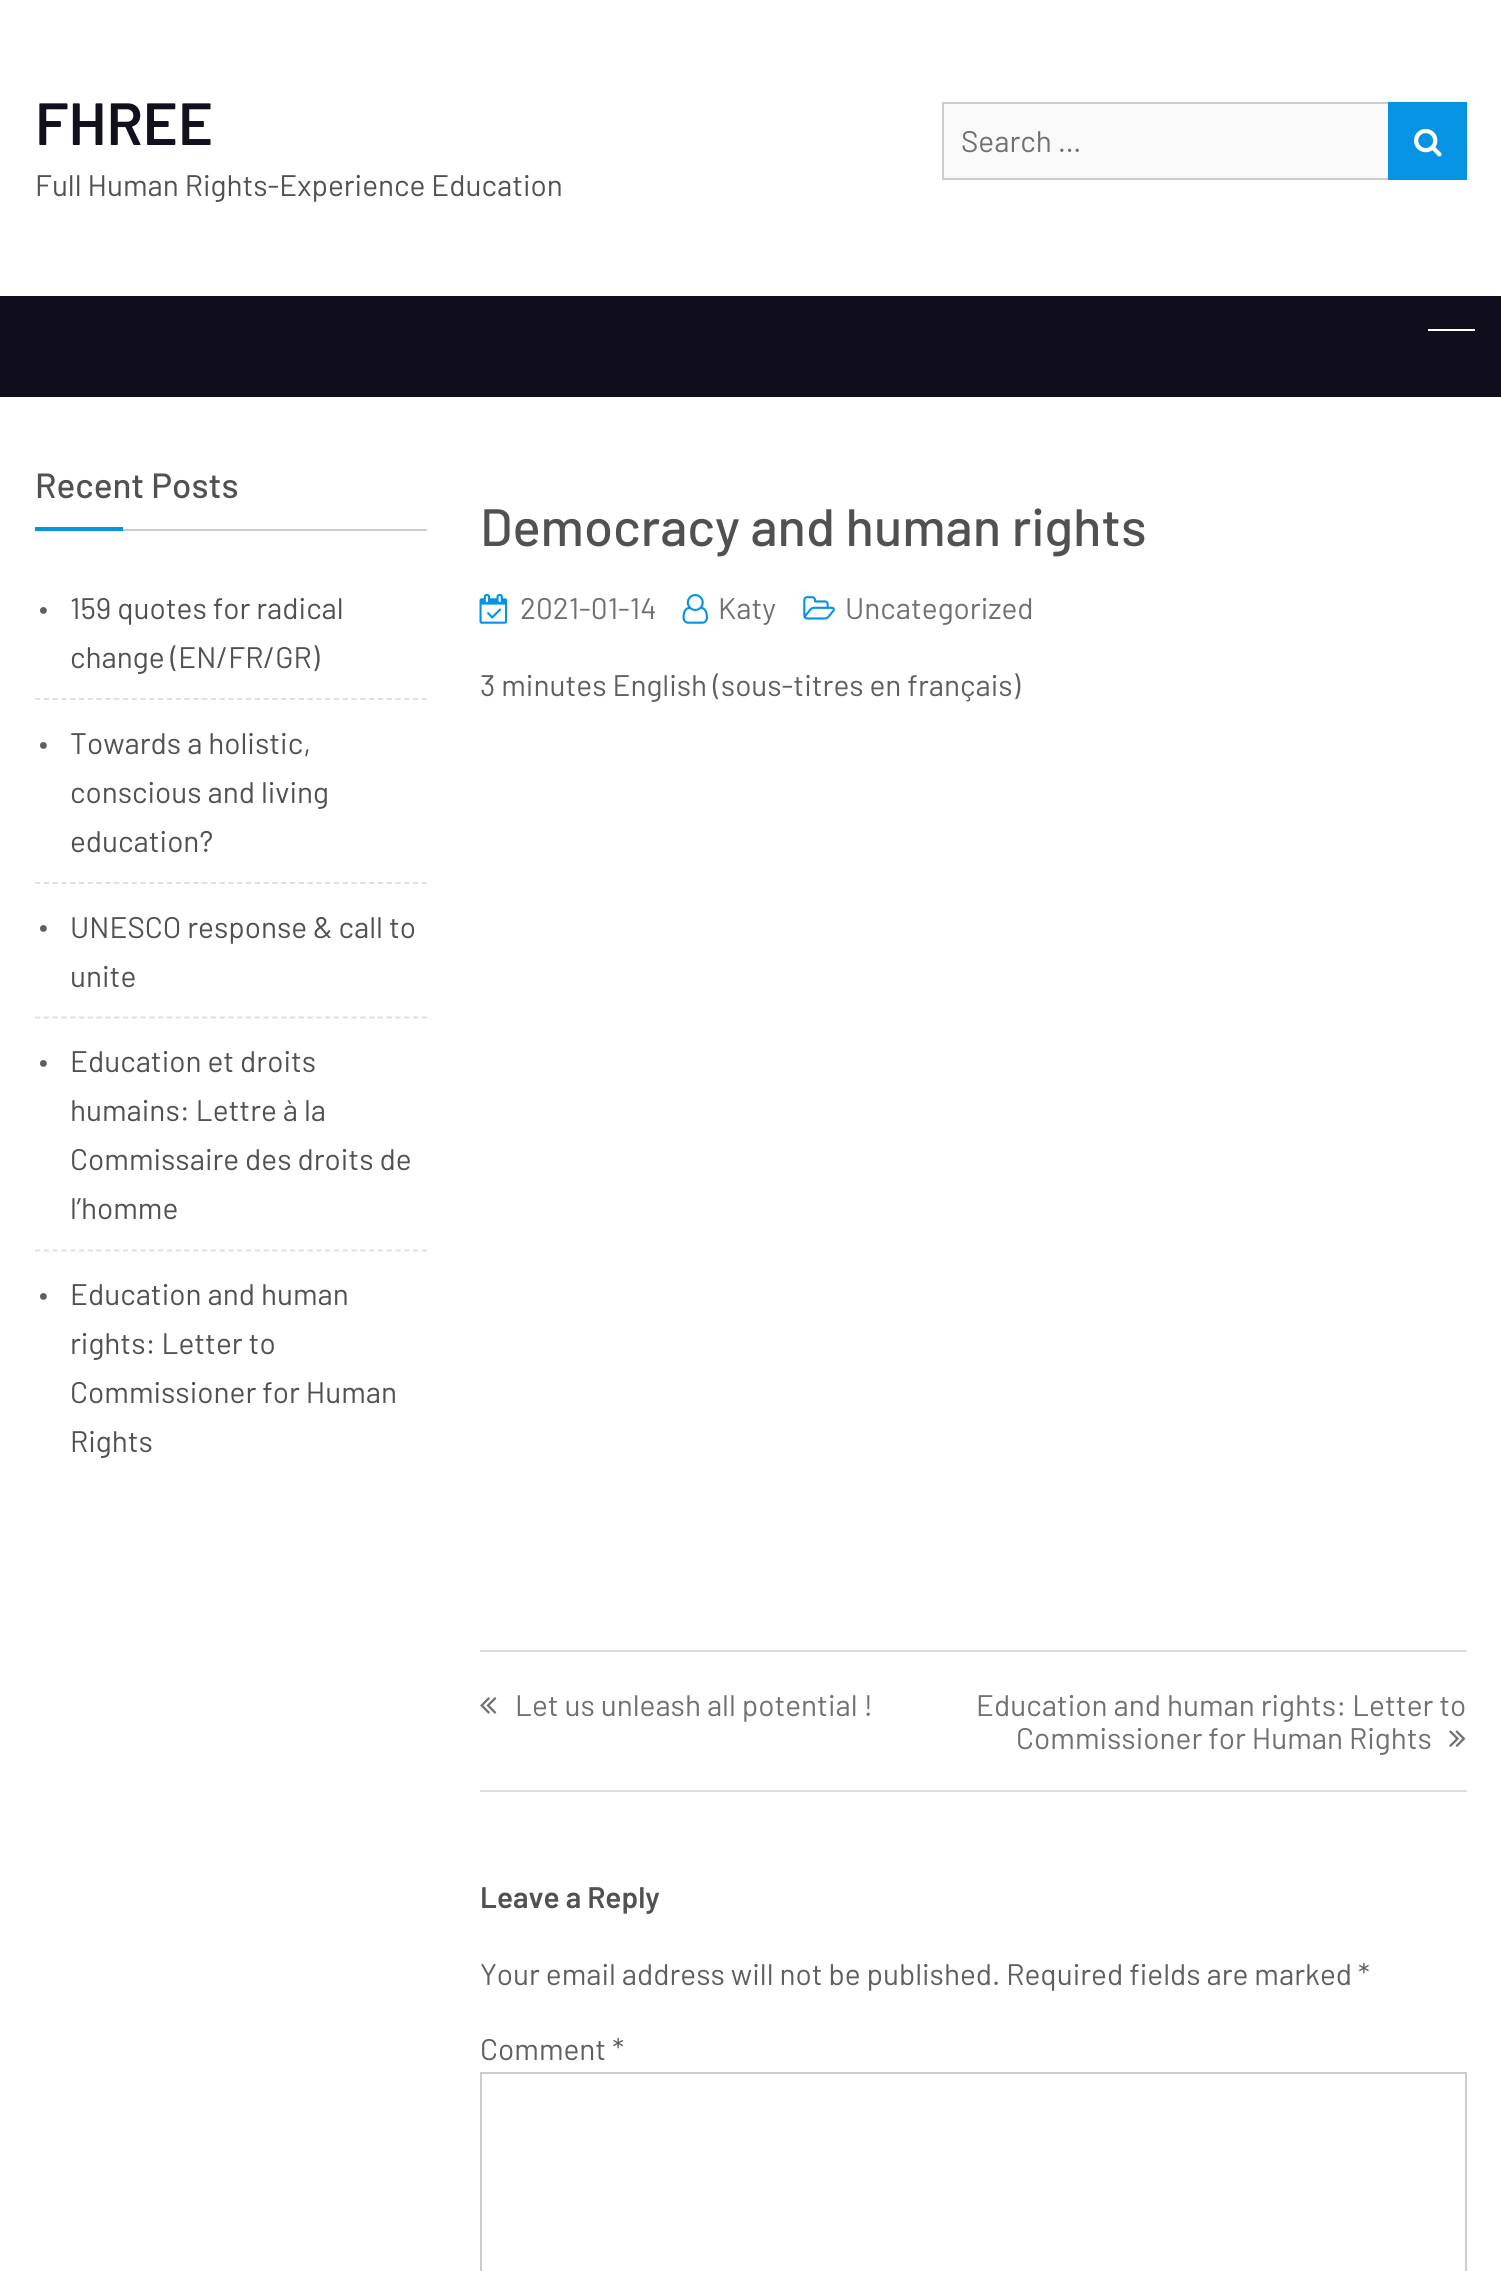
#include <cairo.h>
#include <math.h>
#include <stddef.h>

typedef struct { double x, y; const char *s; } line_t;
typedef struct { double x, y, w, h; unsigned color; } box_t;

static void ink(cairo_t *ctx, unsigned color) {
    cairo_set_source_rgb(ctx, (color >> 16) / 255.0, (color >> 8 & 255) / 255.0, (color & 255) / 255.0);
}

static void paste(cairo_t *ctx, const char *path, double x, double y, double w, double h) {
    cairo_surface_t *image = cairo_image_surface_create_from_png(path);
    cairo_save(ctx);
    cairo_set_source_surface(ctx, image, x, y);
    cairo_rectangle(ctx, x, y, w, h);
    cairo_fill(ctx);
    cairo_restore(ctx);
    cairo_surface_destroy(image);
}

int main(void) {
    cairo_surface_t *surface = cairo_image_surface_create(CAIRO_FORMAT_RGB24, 1501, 2271);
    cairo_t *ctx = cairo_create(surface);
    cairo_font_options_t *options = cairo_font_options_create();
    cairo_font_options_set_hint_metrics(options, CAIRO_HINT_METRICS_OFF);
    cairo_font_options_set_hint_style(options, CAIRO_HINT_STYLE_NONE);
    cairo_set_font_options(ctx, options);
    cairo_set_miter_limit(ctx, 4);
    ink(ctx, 0xFFFFFF);
    cairo_paint(ctx);
    cairo_select_font_face(ctx, "Barlow SemiBold", CAIRO_FONT_SLANT_NORMAL, CAIRO_FONT_WEIGHT_NORMAL);
    cairo_set_font_size(ctx, 59.5);
    ink(ctx, 0x11101D);
    cairo_move_to(ctx, 35, 145);
    cairo_show_text(ctx, "FHREE");
    cairo_select_font_face(ctx, "Barlow", CAIRO_FONT_SLANT_NORMAL, CAIRO_FONT_WEIGHT_NORMAL);
    cairo_set_font_size(ctx, 29.75);
    ink(ctx, 0x515151);
    cairo_move_to(ctx, 35, 196);
    cairo_show_text(ctx, "Full Human Rights-Experience Education");
    ink(ctx, 0xF9F9F9);
    cairo_rectangle(ctx, 944, 104, 444, 74);
    cairo_fill(ctx);
    cairo_rectangle(ctx, 943, 103, 523, 76);
    ink(ctx, 0xCCCCCC);
    cairo_stroke(ctx);
    ink(ctx, 0x707070);
    cairo_move_to(ctx, 961, 152);
    cairo_show_text(ctx, "Search …");
    ink(ctx, 0x0693E3);
    cairo_rectangle(ctx, 1388, 102, 79, 78);
    cairo_fill(ctx);
    paste(ctx, "media/1.png", 1414, 128, 28, 29);
    {
        static const box_t items[] = {
            {0, 296, 1501, 101, 0x100E1C},
            {1428, 329, 47, 2, 0xFFFFFF},
            {123, 529, 304, 2, 0xCCCCCC},
        };
        for (size_t i = 0; i < sizeof items / sizeof *items; i++) {
            ink(ctx, items[i].color);
            cairo_rectangle(ctx, items[i].x, items[i].y, items[i].w, items[i].h);
            cairo_fill(ctx);
        }
    }
    cairo_select_font_face(ctx, "Barlow Medium", CAIRO_FONT_SLANT_NORMAL, CAIRO_FONT_WEIGHT_NORMAL);
    cairo_set_font_size(ctx, 35);
    ink(ctx, 0x515151);
    cairo_move_to(ctx, 35, 498);
    cairo_show_text(ctx, "Recent Posts");
    ink(ctx, 0x0693E3);
    cairo_rectangle(ctx, 35, 527, 88, 4);
    cairo_fill(ctx);
    cairo_new_path(ctx);
    cairo_move_to(ctx, 35, 699);
    cairo_line_to(ctx, 427, 699);
    ink(ctx, 0xDDDDDD);
    cairo_set_line_width(ctx, 1.8);
    cairo_set_dash(ctx, (double[]){5.25, 3.54}, 2, 0);
    cairo_stroke(ctx);
    cairo_select_font_face(ctx, "Barlow", CAIRO_FONT_SLANT_NORMAL, CAIRO_FONT_WEIGHT_NORMAL);
    cairo_set_font_size(ctx, 61);
    ink(ctx, 0x5F5F5F);
    cairo_move_to(ctx, 35, 614);
    cairo_show_text(ctx, ".");
    cairo_set_font_size(ctx, 29.75);
    ink(ctx, 0x515151);
    cairo_move_to(ctx, 70, 619);
    cairo_show_text(ctx, "159 quotes for radical");
    cairo_move_to(ctx, 70, 668);
    cairo_show_text(ctx, "change (EN/FR/GR)");
    cairo_new_path(ctx);
    cairo_move_to(ctx, 35, 883);
    cairo_line_to(ctx, 427, 883);
    ink(ctx, 0xDDDDDD);
    cairo_stroke(ctx);
    cairo_set_font_size(ctx, 61);
    ink(ctx, 0x5F5F5F);
    cairo_move_to(ctx, 35, 749);
    cairo_show_text(ctx, ".");
    cairo_set_font_size(ctx, 29.75);
    ink(ctx, 0x515151);
    {
        static const line_t items[] = {
            {70, 754, "Towards a holistic,"},
            {70, 803, "conscious and living"},
            {70, 852, "education?"},
        };
        for (size_t i = 0; i < sizeof items / sizeof *items; i++) {
            cairo_move_to(ctx, items[i].x, items[i].y);
            cairo_show_text(ctx, items[i].s);
        }
    }
    cairo_new_path(ctx);
    cairo_move_to(ctx, 35, 1017.5);
    cairo_line_to(ctx, 427, 1017.5);
    ink(ctx, 0xDDDDDD);
    cairo_stroke(ctx);
    cairo_set_font_size(ctx, 61);
    ink(ctx, 0x5F5F5F);
    cairo_move_to(ctx, 35, 932);
    cairo_show_text(ctx, ".");
    cairo_set_font_size(ctx, 29.75);
    ink(ctx, 0x515151);
    cairo_move_to(ctx, 70, 938);
    cairo_show_text(ctx, "UNESCO response & call to");
    cairo_move_to(ctx, 70, 987);
    cairo_show_text(ctx, "unite");
    cairo_new_path(ctx);
    cairo_move_to(ctx, 35, 1250.5);
    cairo_line_to(ctx, 427, 1250.5);
    ink(ctx, 0xDDDDDD);
    cairo_stroke(ctx);
    cairo_set_font_size(ctx, 61);
    ink(ctx, 0x5F5F5F);
    cairo_move_to(ctx, 35, 1067);
    cairo_show_text(ctx, ".");
    cairo_set_font_size(ctx, 29.75);
    ink(ctx, 0x515151);
    {
        static const line_t items[] = {
            {70, 1072, "Education et droits"},
            {70, 1121, "humains: Lettre à la"},
            {70, 1170, "Commissaire des droits de"},
            {70, 1219, "l’homme"},
        };
        for (size_t i = 0; i < sizeof items / sizeof *items; i++) {
            cairo_move_to(ctx, items[i].x, items[i].y);
            cairo_show_text(ctx, items[i].s);
        }
    }
    cairo_set_font_size(ctx, 61);
    ink(ctx, 0x5F5F5F);
    cairo_move_to(ctx, 35, 1300);
    cairo_show_text(ctx, ".");
    cairo_set_font_size(ctx, 29.75);
    ink(ctx, 0x515151);
    {
        static const line_t items[] = {
            {70, 1305, "Education and human"},
            {70, 1354, "rights: Letter to"},
            {70, 1403, "Commissioner for Human"},
            {70, 1452, "Rights"},
        };
        for (size_t i = 0; i < sizeof items / sizeof *items; i++) {
            cairo_move_to(ctx, items[i].x, items[i].y);
            cairo_show_text(ctx, items[i].s);
        }
    }
    cairo_select_font_face(ctx, "Barlow Medium", CAIRO_FONT_SLANT_NORMAL, CAIRO_FONT_WEIGHT_NORMAL);
    cairo_set_font_size(ctx, 52.5);
    cairo_move_to(ctx, 480, 546);
    cairo_show_text(ctx, "Democracy and human rights");
    paste(ctx, "media/2.png", 479, 594, 29, 30);
    cairo_select_font_face(ctx, "Barlow", CAIRO_FONT_SLANT_NORMAL, CAIRO_FONT_WEIGHT_NORMAL);
    cairo_set_font_size(ctx, 29.75);
    ink(ctx, 0x707070);
    cairo_move_to(ctx, 520, 619);
    cairo_show_text(ctx, "2021-01-14");
    paste(ctx, "media/3.png", 682, 594, 26, 30);
    cairo_move_to(ctx, 718, 619);
    cairo_show_text(ctx, "Katy");
    paste(ctx, "media/4.png", 803, 596, 32, 24);
    cairo_move_to(ctx, 845, 619);
    cairo_show_text(ctx, "Uncategorized");
    ink(ctx, 0x5F5F5F);
    cairo_move_to(ctx, 480, 696);
    cairo_show_text(ctx, "3 minutes English (sous-titres en français)");
    ink(ctx, 0xDDDDDD);
    cairo_rectangle(ctx, 480, 1650, 987, 2);
    cairo_fill(ctx);
    cairo_rectangle(ctx, 480, 1790, 987, 2);
    cairo_fill(ctx);
    paste(ctx, "media/5.png", 480, 1697, 17, 17);
    ink(ctx, 0x707070);
    {
        static const line_t items[] = {
            {515, 1716, "Let us unleash all potential !"},
            {976, 1716, "Education and human rights: Letter to"},
            {1016, 1749, "Commissioner for Human Rights"},
        };
        for (size_t i = 0; i < sizeof items / sizeof *items; i++) {
            cairo_move_to(ctx, items[i].x, items[i].y);
            cairo_show_text(ctx, items[i].s);
        }
    }
    paste(ctx, "media/6.png", 1449, 1730, 17, 17);
    cairo_select_font_face(ctx, "Barlow SemiBold", CAIRO_FONT_SLANT_NORMAL, CAIRO_FONT_WEIGHT_NORMAL);
    ink(ctx, 0x515151);
    cairo_move_to(ctx, 480, 1908);
    cairo_show_text(ctx, "Leave a Reply");
    cairo_select_font_face(ctx, "Barlow", CAIRO_FONT_SLANT_NORMAL, CAIRO_FONT_WEIGHT_NORMAL);
    ink(ctx, 0x5F5F5F);
    cairo_move_to(ctx, 480, 1985);
    cairo_show_text(ctx, "Your email address will not be published. Required fields are marked *");
    cairo_move_to(ctx, 480, 2060);
    cairo_show_text(ctx, "Comment *");
    cairo_rectangle(ctx, 481, 2073, 985, 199);
    ink(ctx, 0xCCCCCC);
    cairo_set_line_width(ctx, 2);
    cairo_set_dash(ctx, NULL, 0, 0);
    cairo_stroke(ctx);
    cairo_surface_write_to_png(surface, "image.png");
    cairo_font_options_destroy(options);
    cairo_destroy(ctx);
    cairo_surface_destroy(surface);
    return 0;
}
